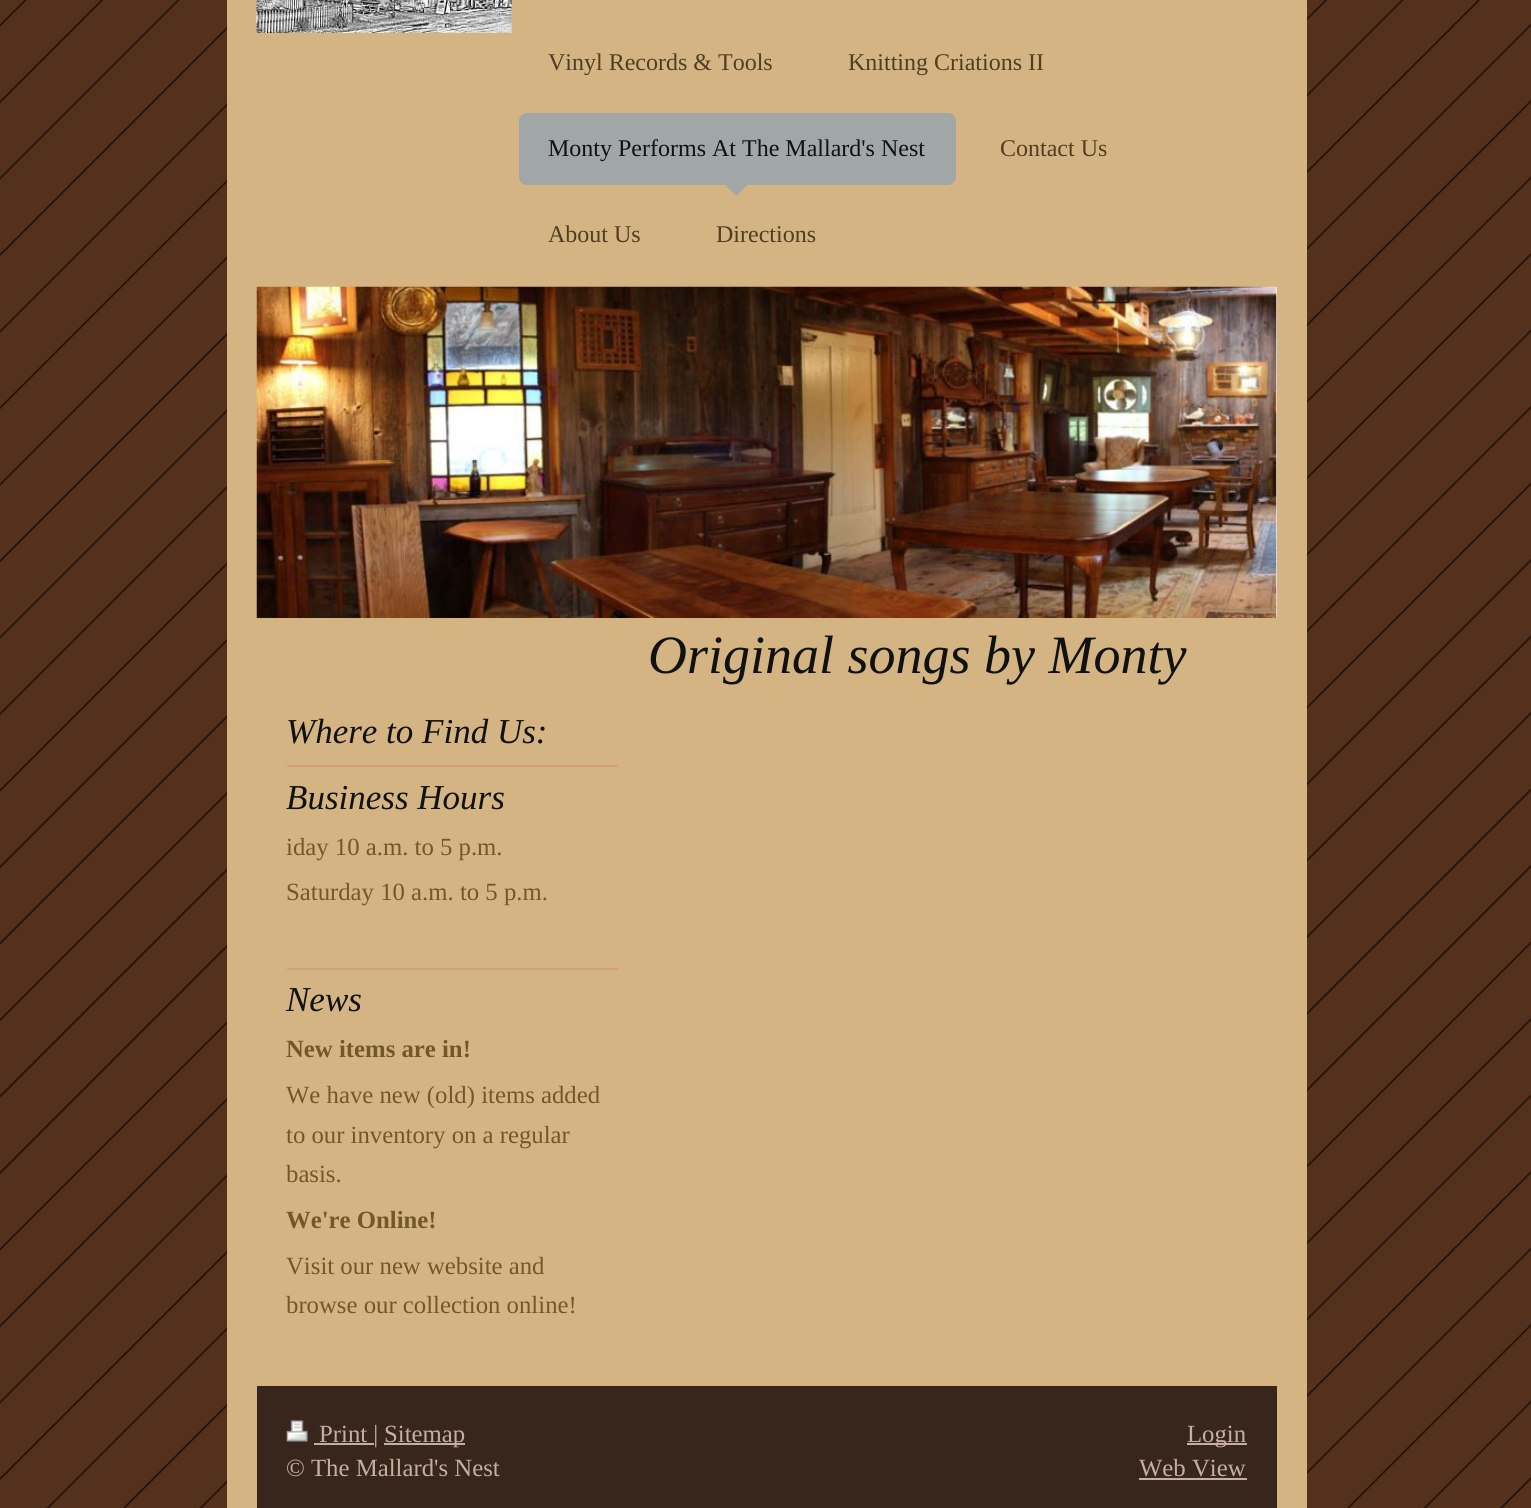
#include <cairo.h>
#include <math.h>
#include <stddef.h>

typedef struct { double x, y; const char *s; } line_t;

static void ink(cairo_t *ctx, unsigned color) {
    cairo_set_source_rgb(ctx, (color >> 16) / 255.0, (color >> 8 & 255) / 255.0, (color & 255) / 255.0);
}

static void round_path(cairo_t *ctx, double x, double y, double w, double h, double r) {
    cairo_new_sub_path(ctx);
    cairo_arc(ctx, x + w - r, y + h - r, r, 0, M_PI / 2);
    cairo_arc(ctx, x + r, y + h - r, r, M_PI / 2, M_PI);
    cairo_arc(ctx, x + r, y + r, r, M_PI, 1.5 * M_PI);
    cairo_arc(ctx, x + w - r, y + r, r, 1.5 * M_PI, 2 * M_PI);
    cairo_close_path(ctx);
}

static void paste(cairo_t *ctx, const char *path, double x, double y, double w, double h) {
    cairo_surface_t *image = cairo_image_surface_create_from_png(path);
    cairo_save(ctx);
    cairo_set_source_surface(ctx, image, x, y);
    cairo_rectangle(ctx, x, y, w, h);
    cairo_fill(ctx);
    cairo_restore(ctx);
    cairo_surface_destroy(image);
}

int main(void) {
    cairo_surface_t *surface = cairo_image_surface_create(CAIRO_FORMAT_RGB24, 1531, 1508);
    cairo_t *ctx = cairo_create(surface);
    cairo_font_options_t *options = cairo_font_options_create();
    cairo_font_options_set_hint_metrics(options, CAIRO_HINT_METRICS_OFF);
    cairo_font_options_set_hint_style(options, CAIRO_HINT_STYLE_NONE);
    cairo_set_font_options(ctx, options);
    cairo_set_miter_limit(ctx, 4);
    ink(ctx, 0x54311D);
    cairo_paint(ctx);
    paste(ctx, "media/1.png", 0, 0, 1531, 1508);
    ink(ctx, 0xD4B483);
    cairo_rectangle(ctx, 227, 0, 1080, 1508);
    cairo_fill(ctx);
    paste(ctx, "media/2.png", 256, 0, 256, 33);
    cairo_select_font_face(ctx, "Liberation Serif", CAIRO_FONT_SLANT_NORMAL, CAIRO_FONT_WEIGHT_NORMAL);
    cairo_set_font_size(ctx, 24);
    ink(ctx, 0x503E21);
    cairo_move_to(ctx, 548, 70);
    cairo_show_text(ctx, "Vinyl Records & Tools");
    cairo_move_to(ctx, 848, 70);
    cairo_show_text(ctx, "Knitting Criations II");
    ink(ctx, 0xA1A7A6);
    round_path(ctx, 519, 113, 437, 72, 8);
    cairo_fill(ctx);
    ink(ctx, 0x101111);
    cairo_move_to(ctx, 548, 156);
    cairo_show_text(ctx, "Monty Performs At The Mallard's Nest");
    ink(ctx, 0xA1A7A6);
    cairo_new_path(ctx);
    cairo_move_to(ctx, 721.5, 181);
    cairo_line_to(ctx, 751.5, 181);
    cairo_line_to(ctx, 736.5, 196);
    cairo_close_path(ctx);
    cairo_fill(ctx);
    ink(ctx, 0x503E21);
    {
        static const line_t items[] = {
            {1000, 156, "Contact Us"},
            {548, 242, "About Us"},
            {716, 242, "Directions"},
        };
        for (size_t i = 0; i < sizeof items / sizeof *items; i++) {
            cairo_move_to(ctx, items[i].x, items[i].y);
            cairo_show_text(ctx, items[i].s);
        }
    }
    ink(ctx, 0xEEEEEE);
    cairo_rectangle(ctx, 1276, 287, 1, 331);
    cairo_fill(ctx);
    paste(ctx, "media/3.png", 256, 286, 1021, 332);
    cairo_select_font_face(ctx, "Liberation Serif", CAIRO_FONT_SLANT_ITALIC, CAIRO_FONT_WEIGHT_NORMAL);
    cairo_set_font_size(ctx, 54);
    ink(ctx, 0x101111);
    cairo_move_to(ctx, 648, 673);
    cairo_show_text(ctx, "Original songs by Monty");
    cairo_set_font_size(ctx, 35);
    cairo_move_to(ctx, 286, 743);
    cairo_show_text(ctx, "Where to Find Us:");
    ink(ctx, 0xD69D7E);
    cairo_rectangle(ctx, 287, 765, 331, 2);
    cairo_fill(ctx);
    ink(ctx, 0x101111);
    cairo_move_to(ctx, 286, 809);
    cairo_show_text(ctx, "Business Hours");
    cairo_select_font_face(ctx, "Liberation Serif", CAIRO_FONT_SLANT_NORMAL, CAIRO_FONT_WEIGHT_NORMAL);
    cairo_set_font_size(ctx, 24.75);
    ink(ctx, 0x72572D);
    cairo_move_to(ctx, 286, 855);
    cairo_show_text(ctx, "iday 10 a.m. to 5 p.m.");
    cairo_move_to(ctx, 286, 900);
    cairo_show_text(ctx, "Saturday 10 a.m. to 5 p.m.");
    ink(ctx, 0xD69D7E);
    cairo_rectangle(ctx, 287, 968, 331, 2);
    cairo_fill(ctx);
    cairo_select_font_face(ctx, "Liberation Serif", CAIRO_FONT_SLANT_ITALIC, CAIRO_FONT_WEIGHT_NORMAL);
    cairo_set_font_size(ctx, 35);
    ink(ctx, 0x101111);
    cairo_move_to(ctx, 286, 1011);
    cairo_show_text(ctx, "News");
    cairo_select_font_face(ctx, "Liberation Serif", CAIRO_FONT_SLANT_NORMAL, CAIRO_FONT_WEIGHT_BOLD);
    cairo_set_font_size(ctx, 24.75);
    ink(ctx, 0x72572D);
    cairo_move_to(ctx, 286, 1057);
    cairo_show_text(ctx, "New items are in!");
    cairo_select_font_face(ctx, "Liberation Serif", CAIRO_FONT_SLANT_NORMAL, CAIRO_FONT_WEIGHT_NORMAL);
    {
        static const line_t items[] = {
            {286, 1103, "We have new (old) items added"},
            {286, 1143, "to our inventory on a regular"},
            {286, 1182, "basis."},
        };
        for (size_t i = 0; i < sizeof items / sizeof *items; i++) {
            cairo_move_to(ctx, items[i].x, items[i].y);
            cairo_show_text(ctx, items[i].s);
        }
    }
    cairo_select_font_face(ctx, "Liberation Serif", CAIRO_FONT_SLANT_NORMAL, CAIRO_FONT_WEIGHT_BOLD);
    cairo_move_to(ctx, 286, 1228);
    cairo_show_text(ctx, "We're Online!");
    cairo_select_font_face(ctx, "Liberation Serif", CAIRO_FONT_SLANT_NORMAL, CAIRO_FONT_WEIGHT_NORMAL);
    cairo_move_to(ctx, 286, 1274);
    cairo_show_text(ctx, "Visit our new website and");
    cairo_move_to(ctx, 286, 1313);
    cairo_show_text(ctx, "browse our collection online!");
    ink(ctx, 0x38261C);
    cairo_rectangle(ctx, 257, 1386, 1020, 122);
    cairo_fill(ctx);
    paste(ctx, "media/4.png", 286, 1420, 22, 22);
    ink(ctx, 0xC7AEA0);
    cairo_rectangle(ctx, 314, 1443, 60, 2);
    cairo_fill(ctx);
    cairo_move_to(ctx, 319, 1442);
    cairo_show_text(ctx, "Print |");
    cairo_rectangle(ctx, 384, 1443, 81, 2);
    cairo_fill(ctx);
    cairo_move_to(ctx, 384, 1442);
    cairo_show_text(ctx, "Sitemap");
    cairo_move_to(ctx, 286, 1476);
    cairo_show_text(ctx, "© The Mallard's Nest");
    cairo_rectangle(ctx, 1187, 1443, 60, 2);
    cairo_fill(ctx);
    cairo_move_to(ctx, 1187, 1442);
    cairo_show_text(ctx, "Login");
    cairo_move_to(ctx, 1139, 1476);
    cairo_show_text(ctx, "Web View");
    cairo_rectangle(ctx, 1139, 1478, 108, 2);
    cairo_fill(ctx);
    cairo_surface_write_to_png(surface, "image.png");
    cairo_font_options_destroy(options);
    cairo_destroy(ctx);
    cairo_surface_destroy(surface);
    return 0;
}
